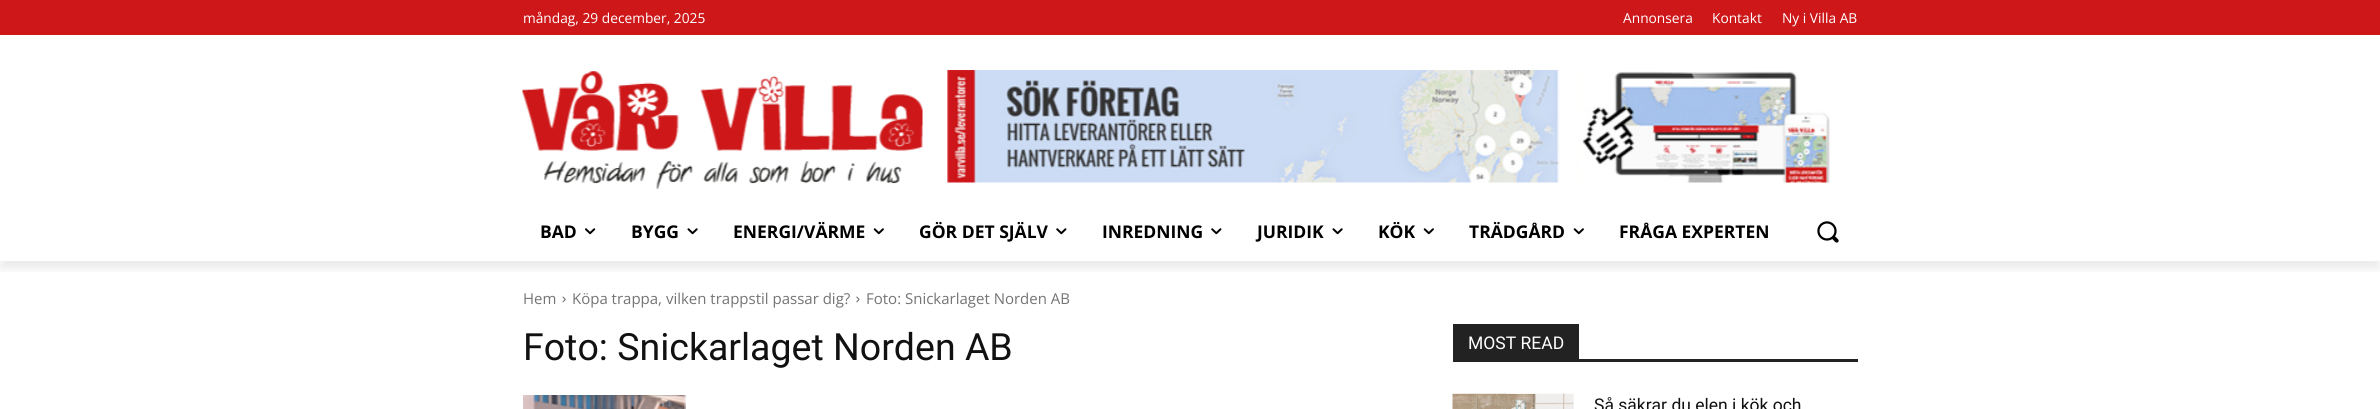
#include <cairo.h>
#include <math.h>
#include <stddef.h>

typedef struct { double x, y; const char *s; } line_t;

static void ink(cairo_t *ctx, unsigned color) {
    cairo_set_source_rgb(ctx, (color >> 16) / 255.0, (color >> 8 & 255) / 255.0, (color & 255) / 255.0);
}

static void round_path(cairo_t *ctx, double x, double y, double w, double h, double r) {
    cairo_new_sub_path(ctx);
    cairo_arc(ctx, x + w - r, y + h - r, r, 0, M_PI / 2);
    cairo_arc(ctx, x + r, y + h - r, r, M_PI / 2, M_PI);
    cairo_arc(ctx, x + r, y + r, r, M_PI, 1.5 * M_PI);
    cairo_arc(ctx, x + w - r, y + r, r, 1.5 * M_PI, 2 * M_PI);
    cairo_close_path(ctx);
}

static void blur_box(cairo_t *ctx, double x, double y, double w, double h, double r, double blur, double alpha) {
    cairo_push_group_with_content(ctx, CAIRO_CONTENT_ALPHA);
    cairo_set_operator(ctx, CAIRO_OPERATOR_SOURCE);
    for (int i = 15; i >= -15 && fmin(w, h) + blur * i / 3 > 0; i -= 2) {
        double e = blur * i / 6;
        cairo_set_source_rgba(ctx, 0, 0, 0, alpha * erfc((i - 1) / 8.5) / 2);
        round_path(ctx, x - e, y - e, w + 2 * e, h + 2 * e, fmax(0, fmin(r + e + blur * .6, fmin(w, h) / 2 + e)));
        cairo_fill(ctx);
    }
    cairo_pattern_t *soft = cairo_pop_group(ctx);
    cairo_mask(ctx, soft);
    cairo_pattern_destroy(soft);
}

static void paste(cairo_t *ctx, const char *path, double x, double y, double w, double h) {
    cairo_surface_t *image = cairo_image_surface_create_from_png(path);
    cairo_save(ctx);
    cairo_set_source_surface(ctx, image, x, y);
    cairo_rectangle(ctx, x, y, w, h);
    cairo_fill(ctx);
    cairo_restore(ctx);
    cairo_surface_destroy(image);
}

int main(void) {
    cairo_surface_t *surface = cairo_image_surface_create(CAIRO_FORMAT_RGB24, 2380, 409);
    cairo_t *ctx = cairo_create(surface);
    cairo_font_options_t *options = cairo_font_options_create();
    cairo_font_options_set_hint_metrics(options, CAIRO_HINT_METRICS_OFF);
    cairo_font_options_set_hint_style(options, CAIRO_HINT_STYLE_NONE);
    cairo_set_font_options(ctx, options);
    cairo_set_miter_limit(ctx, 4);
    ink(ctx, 0xFFFFFF);
    cairo_paint(ctx);
    ink(ctx, 0xCD1719);
    cairo_rectangle(ctx, 0, 0, 2380, 35);
    cairo_fill(ctx);
    paste(ctx, "media/1.png", 522, 71, 401, 118);
    paste(ctx, "media/2.png", 947, 70, 883, 113);
    cairo_save(ctx);
    cairo_rectangle(ctx, 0, 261, 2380, 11);
    cairo_clip(ctx);
    ink(ctx, 0x000000);
    blur_box(ctx, 0, 8, 2380, 261, 0, 5, 0.08);
    cairo_restore(ctx);
    cairo_select_font_face(ctx, "Open Sans", CAIRO_FONT_SLANT_NORMAL, CAIRO_FONT_WEIGHT_NORMAL);
    cairo_set_font_size(ctx, 13.75);
    ink(ctx, 0xFFFFFF);
    {
        static const line_t items[] = {
            {523, 23, "måndag, 29 december, 2025"},
            {1623, 23, "Annonsera"},
            {1712, 23, "Kontakt"},
            {1782, 23, "Ny i Villa AB"},
        };
        for (size_t i = 0; i < sizeof items / sizeof *items; i++) {
            cairo_move_to(ctx, items[i].x, items[i].y);
            cairo_show_text(ctx, items[i].s);
        }
    }
    cairo_select_font_face(ctx, "Open Sans", CAIRO_FONT_SLANT_NORMAL, CAIRO_FONT_WEIGHT_BOLD);
    cairo_set_font_size(ctx, 17.5);
    ink(ctx, 0x000000);
    cairo_move_to(ctx, 540, 238);
    cairo_show_text(ctx, "BAD");
    paste(ctx, "media/3.png", 585, 228, 11, 7);
    cairo_move_to(ctx, 631, 238);
    cairo_show_text(ctx, "BYGG");
    paste(ctx, "media/4.png", 687, 228, 11, 7);
    cairo_move_to(ctx, 733, 238);
    cairo_show_text(ctx, "ENERGI/VÄRME");
    paste(ctx, "media/5.png", 873, 228, 11, 7);
    cairo_move_to(ctx, 919, 238);
    cairo_show_text(ctx, "GÖR DET SJÄLV");
    paste(ctx, "media/6.png", 1056, 228, 11, 7);
    cairo_move_to(ctx, 1102, 238);
    cairo_show_text(ctx, "INREDNING");
    paste(ctx, "media/6.png", 1211, 228, 11, 7);
    cairo_move_to(ctx, 1257, 238);
    cairo_show_text(ctx, "JURIDIK");
    paste(ctx, "media/4.png", 1332, 228, 11, 7);
    cairo_move_to(ctx, 1378, 238);
    cairo_show_text(ctx, "KÖK");
    paste(ctx, "media/5.png", 1423, 228, 11, 7);
    cairo_move_to(ctx, 1469, 238);
    cairo_show_text(ctx, "TRÄDGÅRD");
    paste(ctx, "media/5.png", 1573, 228, 11, 7);
    cairo_move_to(ctx, 1619, 238);
    cairo_show_text(ctx, "FRÅGA EXPERTEN");
    paste(ctx, "media/7.png", 1817, 221, 22, 22);
    cairo_select_font_face(ctx, "Open Sans", CAIRO_FONT_SLANT_NORMAL, CAIRO_FONT_WEIGHT_NORMAL);
    cairo_set_font_size(ctx, 15);
    ink(ctx, 0x747474);
    cairo_move_to(ctx, 523, 304);
    cairo_show_text(ctx, "Hem");
    paste(ctx, "media/8.png", 562, 296, 4, 7);
    cairo_move_to(ctx, 572, 304);
    cairo_show_text(ctx, "Köpa trappa, vilken trappstil passar dig?");
    paste(ctx, "media/9.png", 856, 296, 4, 7);
    cairo_move_to(ctx, 866, 304);
    cairo_show_text(ctx, "Foto: Snickarlaget Norden AB");
    cairo_select_font_face(ctx, "Roboto", CAIRO_FONT_SLANT_NORMAL, CAIRO_FONT_WEIGHT_NORMAL);
    cairo_set_font_size(ctx, 37.5);
    ink(ctx, 0x111111);
    cairo_move_to(ctx, 523, 360);
    cairo_show_text(ctx, "Foto: Snickarlaget Norden AB");
    paste(ctx, "media/10.png", 523, 395, 163, 14);
    ink(ctx, 0x222222);
    cairo_rectangle(ctx, 1453, 359, 405, 3);
    cairo_fill(ctx);
    cairo_rectangle(ctx, 1453, 324, 126, 35);
    cairo_fill(ctx);
    cairo_set_font_size(ctx, 17.5);
    ink(ctx, 0xFFFFFF);
    cairo_move_to(ctx, 1468, 349);
    cairo_show_text(ctx, "MOST READ");
    paste(ctx, "media/11.png", 1452, 393, 122, 16);
    ink(ctx, 0x111111);
    cairo_move_to(ctx, 1594, 411);
    cairo_show_text(ctx, "Så säkrar du elen i kök och");
    cairo_surface_write_to_png(surface, "image.png");
    cairo_font_options_destroy(options);
    cairo_destroy(ctx);
    cairo_surface_destroy(surface);
    return 0;
}
